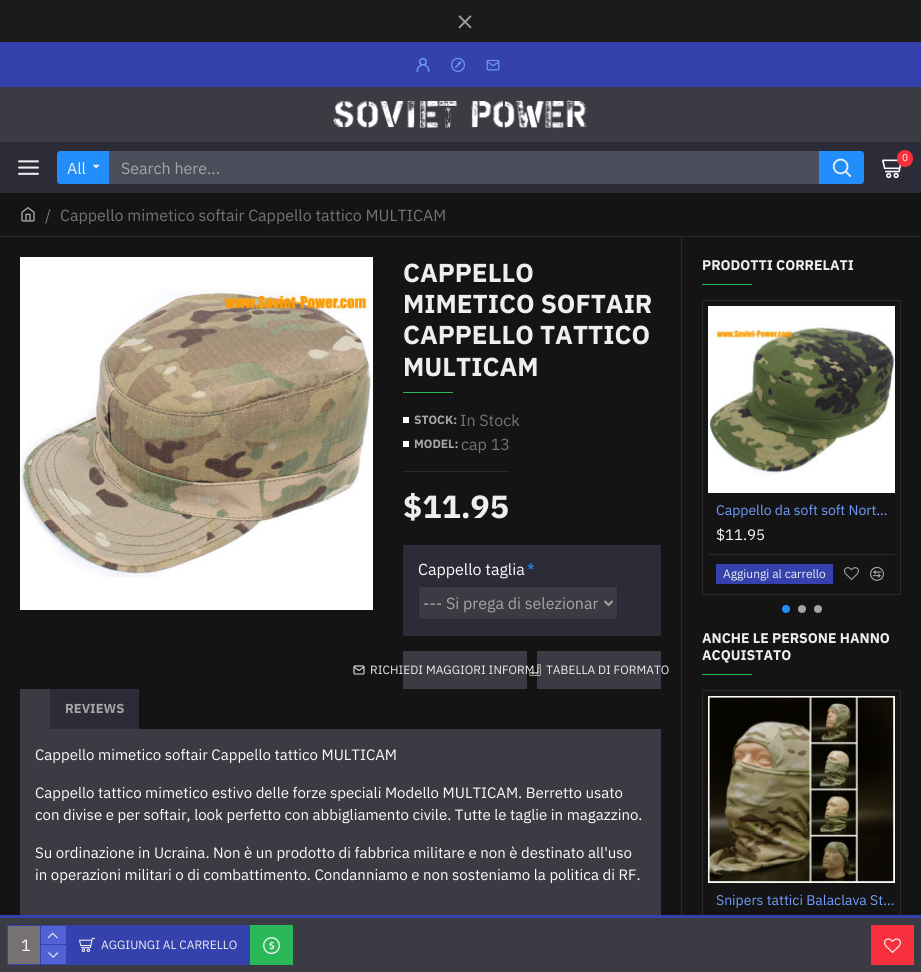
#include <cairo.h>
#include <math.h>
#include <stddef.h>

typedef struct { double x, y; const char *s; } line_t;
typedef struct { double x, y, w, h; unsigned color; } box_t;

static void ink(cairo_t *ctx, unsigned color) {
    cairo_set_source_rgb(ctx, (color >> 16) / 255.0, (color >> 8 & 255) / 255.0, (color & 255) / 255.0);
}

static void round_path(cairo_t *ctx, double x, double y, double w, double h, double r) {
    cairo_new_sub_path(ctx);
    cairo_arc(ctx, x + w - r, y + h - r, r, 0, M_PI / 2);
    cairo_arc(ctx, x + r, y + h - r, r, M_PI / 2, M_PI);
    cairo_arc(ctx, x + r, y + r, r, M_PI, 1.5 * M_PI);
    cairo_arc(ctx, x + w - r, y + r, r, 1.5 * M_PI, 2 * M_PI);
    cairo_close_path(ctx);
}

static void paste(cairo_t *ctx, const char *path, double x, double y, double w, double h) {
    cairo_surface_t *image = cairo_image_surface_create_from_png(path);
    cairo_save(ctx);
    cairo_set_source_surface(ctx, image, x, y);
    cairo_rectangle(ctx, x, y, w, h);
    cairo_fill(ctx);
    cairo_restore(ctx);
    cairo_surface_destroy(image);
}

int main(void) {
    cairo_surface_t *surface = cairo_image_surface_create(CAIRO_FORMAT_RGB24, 921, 972);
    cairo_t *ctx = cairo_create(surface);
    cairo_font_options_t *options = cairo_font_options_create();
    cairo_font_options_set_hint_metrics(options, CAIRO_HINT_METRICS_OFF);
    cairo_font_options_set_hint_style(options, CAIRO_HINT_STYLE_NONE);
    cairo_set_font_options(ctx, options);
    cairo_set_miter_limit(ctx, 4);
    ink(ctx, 0x141414);
    cairo_paint(ctx);
    ink(ctx, 0x1B1B1B);
    cairo_rectangle(ctx, 0, 0, 921, 42);
    cairo_fill(ctx);
    paste(ctx, "media/1.png", 458, 15, 14, 14);
    ink(ctx, 0x3542AE);
    cairo_rectangle(ctx, 0, 42, 921, 45);
    cairo_fill(ctx);
    paste(ctx, "media/2.png", 416, 57, 14, 15);
    paste(ctx, "media/3.png", 451, 57, 14, 15);
    paste(ctx, "media/4.png", 486, 59, 14, 12);
    ink(ctx, 0x3B3B43);
    cairo_rectangle(ctx, 0, 87, 921, 55);
    cairo_fill(ctx);
    paste(ctx, "media/5.png", 333, 100, 254, 29);
    ink(ctx, 0x2C2C39);
    cairo_rectangle(ctx, 0, 142, 921, 51);
    cairo_fill(ctx);
    paste(ctx, "media/6.png", 882, 159, 20, 20);
    ink(ctx, 0xF8303D);
    round_path(ctx, 897, 150, 16, 17, 8);
    cairo_fill(ctx);
    cairo_select_font_face(ctx, "IBM Plex Sans", CAIRO_FONT_SLANT_NORMAL, CAIRO_FONT_WEIGHT_NORMAL);
    cairo_set_font_size(ctx, 10);
    ink(ctx, 0xFDFDFD);
    cairo_move_to(ctx, 902, 161);
    cairo_show_text(ctx, "0");
    paste(ctx, "media/7.png", 18, 160, 21, 15);
    ink(ctx, 0x228EFB);
    cairo_new_path(ctx);
    cairo_move_to(ctx, 60, 151);
    cairo_line_to(ctx, 109, 151);
    cairo_line_to(ctx, 109, 184);
    cairo_line_to(ctx, 60, 184);
    cairo_curve_to(ctx, 58.5, 184, 57, 182.5, 57, 181);
    cairo_line_to(ctx, 57, 154);
    cairo_curve_to(ctx, 57, 152.5, 58.5, 151, 60, 151);
    cairo_close_path(ctx);
    cairo_fill(ctx);
    cairo_set_font_size(ctx, 16);
    ink(ctx, 0xEEEEEE);
    cairo_move_to(ctx, 67, 174);
    cairo_show_text(ctx, "All");
    paste(ctx, "media/8.png", 93, 164, 7, 5);
    ink(ctx, 0x4A4E5A);
    cairo_rectangle(ctx, 109, 151, 710, 33);
    cairo_fill(ctx);
    ink(ctx, 0xA5A5A5);
    cairo_move_to(ctx, 121, 174);
    cairo_show_text(ctx, "Search here...");
    ink(ctx, 0x228EFB);
    cairo_new_path(ctx);
    cairo_move_to(ctx, 819, 151);
    cairo_line_to(ctx, 861, 151);
    cairo_curve_to(ctx, 862.5, 151, 864, 152.5, 864, 154);
    cairo_line_to(ctx, 864, 181);
    cairo_curve_to(ctx, 864, 182.5, 862.5, 184, 861, 184);
    cairo_line_to(ctx, 819, 184);
    cairo_close_path(ctx);
    cairo_fill(ctx);
    paste(ctx, "media/9.png", 832, 158, 20, 19);
    paste(ctx, "media/10.png", 21, 207, 14, 15);
    ink(ctx, 0x767272);
    cairo_move_to(ctx, 45, 221);
    cairo_show_text(ctx, "/");
    cairo_move_to(ctx, 60, 221);
    cairo_show_text(ctx, "Cappello mimetico softair Cappello tattico MULTICAM");
    ink(ctx, 0x282832);
    cairo_rectangle(ctx, 0, 236, 921, 1);
    cairo_fill(ctx);
    paste(ctx, "media/11.png", 20, 257, 353, 353);
    cairo_select_font_face(ctx, "IBM Plex Sans", CAIRO_FONT_SLANT_NORMAL, CAIRO_FONT_WEIGHT_BOLD);
    cairo_set_font_size(ctx, 26);
    ink(ctx, 0xEEEEEE);
    {
        static const line_t items[] = {
            {403, 282, "CAPPELLO"},
            {403, 313, "MIMETICO SOFTAIR"},
            {403, 344, "CAPPELLO TATTICO"},
            {403, 376, "MULTICAM"},
        };
        for (size_t i = 0; i < sizeof items / sizeof *items; i++) {
            cairo_move_to(ctx, items[i].x, items[i].y);
            cairo_show_text(ctx, items[i].s);
        }
    }
    ink(ctx, 0x2AB858);
    cairo_rectangle(ctx, 403, 392, 50, 1);
    cairo_fill(ctx);
    ink(ctx, 0xFDFDFD);
    cairo_rectangle(ctx, 403, 417, 6, 6);
    cairo_fill(ctx);
    cairo_set_font_size(ctx, 12);
    ink(ctx, 0xA5A5A5);
    cairo_move_to(ctx, 414, 424);
    cairo_show_text(ctx, "STOCK:");
    cairo_select_font_face(ctx, "IBM Plex Sans", CAIRO_FONT_SLANT_NORMAL, CAIRO_FONT_WEIGHT_NORMAL);
    cairo_set_font_size(ctx, 16);
    ink(ctx, 0x767272);
    cairo_move_to(ctx, 460, 426);
    cairo_show_text(ctx, "In Stock");
    ink(ctx, 0xFDFDFD);
    cairo_rectangle(ctx, 403, 441, 6, 6);
    cairo_fill(ctx);
    cairo_select_font_face(ctx, "IBM Plex Sans", CAIRO_FONT_SLANT_NORMAL, CAIRO_FONT_WEIGHT_BOLD);
    cairo_set_font_size(ctx, 12);
    ink(ctx, 0xA5A5A5);
    cairo_move_to(ctx, 414, 448);
    cairo_show_text(ctx, "MODEL:");
    cairo_select_font_face(ctx, "IBM Plex Sans", CAIRO_FONT_SLANT_NORMAL, CAIRO_FONT_WEIGHT_NORMAL);
    cairo_set_font_size(ctx, 16);
    ink(ctx, 0x767272);
    cairo_move_to(ctx, 461, 450);
    cairo_show_text(ctx, "cap 13");
    ink(ctx, 0x282832);
    cairo_rectangle(ctx, 403, 471, 106, 1);
    cairo_fill(ctx);
    cairo_select_font_face(ctx, "IBM Plex Sans", CAIRO_FONT_SLANT_NORMAL, CAIRO_FONT_WEIGHT_BOLD);
    cairo_set_font_size(ctx, 32);
    ink(ctx, 0xEEEEEE);
    cairo_move_to(ctx, 403, 518);
    cairo_show_text(ctx, "$11.95");
    ink(ctx, 0x2C2C39);
    cairo_rectangle(ctx, 403, 545, 258, 91);
    cairo_fill(ctx);
    cairo_select_font_face(ctx, "IBM Plex Sans", CAIRO_FONT_SLANT_NORMAL, CAIRO_FONT_WEIGHT_NORMAL);
    cairo_set_font_size(ctx, 16);
    ink(ctx, 0xFDFDFD);
    cairo_move_to(ctx, 418, 575);
    cairo_show_text(ctx, "Cappello taglia");
    cairo_set_font_size(ctx, 17);
    ink(ctx, 0x228EFB);
    cairo_move_to(ctx, 527, 576);
    cairo_show_text(ctx, "*");
    ink(ctx, 0x3B3B43);
    round_path(ctx, 418.5, 586.5, 199, 33, 1.5);
    cairo_fill_preserve(ctx);
    ink(ctx, 0x282832);
    cairo_set_line_width(ctx, 1);
    cairo_stroke(ctx);
    cairo_new_path(ctx);
    cairo_move_to(ctx, 604.5, 601);
    cairo_line_to(ctx, 608.5, 605);
    cairo_line_to(ctx, 612.5, 601);
    ink(ctx, 0xA5A5A5);
    cairo_set_line_width(ctx, 2);
    cairo_stroke(ctx);
    cairo_set_font_size(ctx, 16);
    cairo_move_to(ctx, 423, 609);
    cairo_show_text(ctx, "--- Si prega di selezionar");
    cairo_rectangle(ctx, 702.5, 690.5, 198, 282);
    ink(ctx, 0x282832);
    cairo_set_line_width(ctx, 1);
    cairo_stroke(ctx);
    ink(ctx, 0x3B3B43);
    cairo_rectangle(ctx, 0, 918, 921, 54);
    cairo_fill(ctx);
    ink(ctx, 0x3542AE);
    cairo_rectangle(ctx, 0, 915, 921, 3);
    cairo_fill(ctx);
    cairo_rectangle(ctx, 7.5, 925.5, 59, 39);
    cairo_stroke(ctx);
    ink(ctx, 0x767272);
    cairo_rectangle(ctx, 8, 926, 32, 38);
    cairo_fill(ctx);
    ink(ctx, 0xFDFDFD);
    cairo_move_to(ctx, 21, 951);
    cairo_show_text(ctx, "1");
    {
        static const box_t items[] = {
            {40, 926, 1, 38, 0x3542AE},
            {41, 926, 25, 18, 0x5162D5},
            {41, 944, 25, 1, 0x3542AE},
        };
        for (size_t i = 0; i < sizeof items / sizeof *items; i++) {
            ink(ctx, items[i].color);
            cairo_rectangle(ctx, items[i].x, items[i].y, items[i].w, items[i].h);
            cairo_fill(ctx);
        }
    }
    paste(ctx, "media/12.png", 47, 932, 11, 7);
    ink(ctx, 0x5162D5);
    cairo_rectangle(ctx, 41, 945, 25, 19);
    cairo_fill(ctx);
    paste(ctx, "media/13.png", 48, 952, 11, 6);
    ink(ctx, 0x3542AE);
    cairo_rectangle(ctx, 67, 925, 183, 40);
    cairo_fill(ctx);
    paste(ctx, "media/14.png", 79, 937, 16, 16);
    cairo_set_font_size(ctx, 12);
    ink(ctx, 0xEEEEEE);
    cairo_move_to(ctx, 101, 949);
    cairo_show_text(ctx, "AGGIUNGI AL CARRELLO");
    ink(ctx, 0x2AB858);
    cairo_rectangle(ctx, 250, 925, 43, 40);
    cairo_fill(ctx);
    paste(ctx, "media/15.png", 263, 937, 17, 18);
    ink(ctx, 0xF8303D);
    cairo_rectangle(ctx, 871, 925, 43, 40);
    cairo_fill(ctx);
    paste(ctx, "media/16.png", 884, 938, 17, 15);
    ink(ctx, 0x3B3B43);
    cairo_rectangle(ctx, 403, 651, 124, 38);
    cairo_fill(ctx);
    paste(ctx, "media/17.png", 353, 665, 12, 10);
    ink(ctx, 0xEEEEEE);
    cairo_move_to(ctx, 370, 674);
    cairo_show_text(ctx, "RICHIEDI MAGGIORI INFORM");
    ink(ctx, 0x3B3B43);
    cairo_rectangle(ctx, 537, 651, 124, 38);
    cairo_fill(ctx);
    paste(ctx, "media/18.png", 529, 664, 12, 12);
    ink(ctx, 0xEEEEEE);
    cairo_move_to(ctx, 546, 674);
    cairo_show_text(ctx, "TABELLA DI FORMATO");
    ink(ctx, 0x3B3B43);
    cairo_rectangle(ctx, 20, 689, 30, 40);
    cairo_fill(ctx);
    ink(ctx, 0x2C2C39);
    cairo_rectangle(ctx, 50, 689, 89, 40);
    cairo_fill(ctx);
    cairo_select_font_face(ctx, "IBM Plex Sans", CAIRO_FONT_SLANT_NORMAL, CAIRO_FONT_WEIGHT_BOLD);
    cairo_set_font_size(ctx, 13);
    ink(ctx, 0xA5A5A5);
    cairo_move_to(ctx, 65, 713);
    cairo_show_text(ctx, "REVIEWS");
    ink(ctx, 0x3B3B43);
    cairo_rectangle(ctx, 20, 729, 641, 186);
    cairo_fill(ctx);
    cairo_select_font_face(ctx, "IBM Plex Sans", CAIRO_FONT_SLANT_NORMAL, CAIRO_FONT_WEIGHT_NORMAL);
    cairo_set_font_size(ctx, 15);
    ink(ctx, 0xFDFDFD);
    {
        static const line_t items[] = {
            {35, 760, "Cappello mimetico softair Cappello tattico MULTICAM"},
            {35, 798, "Cappello tattico mimetico estivo delle forze speciali Modello MULTICAM. Berretto usato"},
            {35, 820, "con divise e per softair, look perfetto con abbigliamento civile. Tutte le taglie in magazzino."},
            {35, 858, "Su ordinazione in Ucraina. Non è un prodotto di fabbrica militare e non è destinato all'uso"},
            {35, 880, "in operazioni militari o di combattimento. Condanniamo e non sosteniamo la politica di RF."},
        };
        for (size_t i = 0; i < sizeof items / sizeof *items; i++) {
            cairo_move_to(ctx, items[i].x, items[i].y);
            cairo_show_text(ctx, items[i].s);
        }
    }
    ink(ctx, 0x282832);
    cairo_rectangle(ctx, 681, 237, 1, 678);
    cairo_fill(ctx);
    cairo_select_font_face(ctx, "IBM Plex Sans", CAIRO_FONT_SLANT_NORMAL, CAIRO_FONT_WEIGHT_BOLD);
    cairo_set_font_size(ctx, 14);
    ink(ctx, 0xEEEEEE);
    cairo_move_to(ctx, 702, 270);
    cairo_show_text(ctx, "PRODOTTI CORRELATI");
    ink(ctx, 0x2AB858);
    cairo_rectangle(ctx, 702, 284, 50, 1);
    cairo_fill(ctx);
    cairo_rectangle(ctx, 702.5, 300.5, 198, 294);
    ink(ctx, 0x282832);
    cairo_stroke(ctx);
    paste(ctx, "media/19.png", 708, 306, 187, 187);
    cairo_select_font_face(ctx, "IBM Plex Sans", CAIRO_FONT_SLANT_NORMAL, CAIRO_FONT_WEIGHT_NORMAL);
    ink(ctx, 0x719BFC);
    cairo_move_to(ctx, 716, 515);
    cairo_show_text(ctx, "Cappello da soft soft Nort…");
    cairo_set_font_size(ctx, 15);
    ink(ctx, 0xFDFDFD);
    cairo_move_to(ctx, 716, 540);
    cairo_show_text(ctx, "$11.95");
    ink(ctx, 0x282832);
    cairo_rectangle(ctx, 708, 554, 187, 1);
    cairo_fill(ctx);
    ink(ctx, 0x3542AE);
    cairo_rectangle(ctx, 716, 564, 117, 20);
    cairo_fill(ctx);
    cairo_set_font_size(ctx, 12);
    ink(ctx, 0xEEEEEE);
    cairo_move_to(ctx, 723, 578);
    cairo_show_text(ctx, "Aggiungi al carrello");
    paste(ctx, "media/20.png", 844, 567, 15, 13);
    paste(ctx, "media/21.png", 870, 566, 14, 15);
    ink(ctx, 0x228EFB);
    cairo_arc(ctx, 786, 609, 4, 0, 2 * M_PI);
    cairo_fill(ctx);
    ink(ctx, 0xA5A5A5);
    cairo_arc(ctx, 802, 609, 4, 0, 2 * M_PI);
    cairo_fill(ctx);
    cairo_arc(ctx, 818, 609, 4, 0, 2 * M_PI);
    cairo_fill(ctx);
    cairo_select_font_face(ctx, "IBM Plex Sans", CAIRO_FONT_SLANT_NORMAL, CAIRO_FONT_WEIGHT_BOLD);
    cairo_set_font_size(ctx, 14);
    ink(ctx, 0xEEEEEE);
    cairo_move_to(ctx, 702, 643);
    cairo_show_text(ctx, "ANCHE LE PERSONE HANNO");
    cairo_move_to(ctx, 702, 660);
    cairo_show_text(ctx, "ACQUISTATO");
    ink(ctx, 0x2AB858);
    cairo_rectangle(ctx, 702, 674, 50, 1);
    cairo_fill(ctx);
    paste(ctx, "media/22.png", 708, 696, 187, 187);
    cairo_select_font_face(ctx, "IBM Plex Sans", CAIRO_FONT_SLANT_NORMAL, CAIRO_FONT_WEIGHT_NORMAL);
    ink(ctx, 0x719BFC);
    cairo_move_to(ctx, 716, 905);
    cairo_show_text(ctx, "Snipers tattici Balaclava St…");
    cairo_surface_write_to_png(surface, "image.png");
    cairo_font_options_destroy(options);
    cairo_destroy(ctx);
    cairo_surface_destroy(surface);
    return 0;
}
